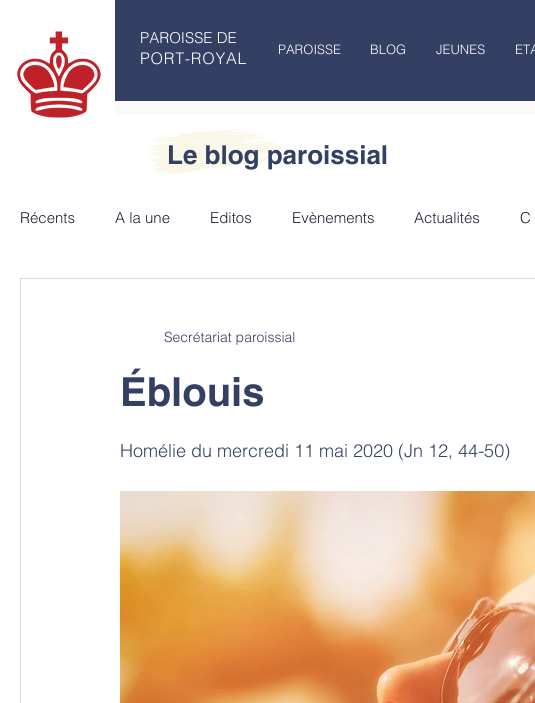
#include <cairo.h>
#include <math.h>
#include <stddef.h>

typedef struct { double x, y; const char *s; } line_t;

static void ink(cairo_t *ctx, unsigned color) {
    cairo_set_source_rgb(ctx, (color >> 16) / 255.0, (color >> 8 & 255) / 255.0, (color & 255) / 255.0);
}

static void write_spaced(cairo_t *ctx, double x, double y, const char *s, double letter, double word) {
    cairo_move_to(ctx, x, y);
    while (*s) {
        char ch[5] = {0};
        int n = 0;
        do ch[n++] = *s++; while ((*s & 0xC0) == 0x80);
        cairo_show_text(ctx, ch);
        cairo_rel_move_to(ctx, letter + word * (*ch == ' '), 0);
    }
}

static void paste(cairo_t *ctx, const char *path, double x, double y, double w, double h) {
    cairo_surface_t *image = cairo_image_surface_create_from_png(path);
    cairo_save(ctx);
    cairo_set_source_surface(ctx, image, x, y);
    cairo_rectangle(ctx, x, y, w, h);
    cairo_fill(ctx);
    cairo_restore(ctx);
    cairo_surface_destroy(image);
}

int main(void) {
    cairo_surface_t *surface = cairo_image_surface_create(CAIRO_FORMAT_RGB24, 535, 703);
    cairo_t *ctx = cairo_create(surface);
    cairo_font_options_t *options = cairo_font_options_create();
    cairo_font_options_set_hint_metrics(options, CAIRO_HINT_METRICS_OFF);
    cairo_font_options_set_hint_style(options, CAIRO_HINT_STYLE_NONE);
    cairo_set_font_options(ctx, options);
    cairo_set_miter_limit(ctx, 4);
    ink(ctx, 0x343F64);
    cairo_paint(ctx);
    ink(ctx, 0xFFFFFF);
    cairo_rectangle(ctx, 0, 0, 115, 115);
    cairo_fill(ctx);
    cairo_rectangle(ctx, 0, 115, 535, 588);
    cairo_fill(ctx);
    paste(ctx, "media/1.png", 17, 31, 84, 87);
    cairo_select_font_face(ctx, "helvetica Light", CAIRO_FONT_SLANT_NORMAL, CAIRO_FONT_WEIGHT_NORMAL);
    cairo_set_font_size(ctx, 15);
    cairo_move_to(ctx, 140, 43);
    cairo_show_text(ctx, "PAROISSE DE");
    cairo_set_font_size(ctx, 16);
    write_spaced(ctx, 140, 64, "PORT-ROYAL", 0.75, 0);
    cairo_set_font_size(ctx, 13);
    {
        static const line_t items[] = {
            {278, 54, "PAROISSE"},
            {370, 54, "BLOG"},
            {436, 54, "JEUNES"},
            {515, 54, "ETA"},
        };
        for (size_t i = 0; i < sizeof items / sizeof *items; i++) {
            cairo_move_to(ctx, items[i].x, items[i].y);
            cairo_show_text(ctx, items[i].s);
        }
    }
    ink(ctx, 0xFAFAFA);
    cairo_rectangle(ctx, 115, 101, 420, 14);
    cairo_fill(ctx);
    paste(ctx, "media/2.png", 146, 129, 139, 45);
    cairo_select_font_face(ctx, "helvetica", CAIRO_FONT_SLANT_NORMAL, CAIRO_FONT_WEIGHT_BOLD);
    cairo_set_font_size(ctx, 26);
    ink(ctx, 0x343F64);
    cairo_move_to(ctx, 167, 164);
    cairo_show_text(ctx, "Le blog paroissial");
    cairo_select_font_face(ctx, "helvetica Light", CAIRO_FONT_SLANT_NORMAL, CAIRO_FONT_WEIGHT_NORMAL);
    cairo_set_font_size(ctx, 15);
    ink(ctx, 0x1A2032);
    {
        static const line_t items[] = {
            {20, 223, "Récents"},
            {115, 223, "A la une"},
            {210, 223, "Editos"},
            {292, 223, "Evènements"},
            {414, 223, "Actualités"},
            {520, 223, "C"},
        };
        for (size_t i = 0; i < sizeof items / sizeof *items; i++) {
            cairo_move_to(ctx, items[i].x, items[i].y);
            cairo_show_text(ctx, items[i].s);
        }
    }
    cairo_rectangle(ctx, 20.5, 278.5, 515, 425);
    ink(ctx, 0xD9D9D9);
    cairo_set_line_width(ctx, 1);
    cairo_stroke(ctx);
    cairo_set_font_size(ctx, 14);
    ink(ctx, 0x343F64);
    cairo_move_to(ctx, 164, 342);
    cairo_show_text(ctx, "Secrétariat paroissial");
    cairo_select_font_face(ctx, "helvetica", CAIRO_FONT_SLANT_NORMAL, CAIRO_FONT_WEIGHT_BOLD);
    cairo_set_font_size(ctx, 40);
    cairo_move_to(ctx, 120, 406);
    cairo_show_text(ctx, "Éblouis");
    cairo_select_font_face(ctx, "helvetica Light", CAIRO_FONT_SLANT_NORMAL, CAIRO_FONT_WEIGHT_NORMAL);
    cairo_set_font_size(ctx, 18);
    cairo_move_to(ctx, 120, 457);
    cairo_show_text(ctx, "Homélie du mercredi 11 mai 2020 (Jn 12, 44-50)");
    paste(ctx, "media/3.png", 120, 491, 415, 212);
    cairo_surface_write_to_png(surface, "image.png");
    cairo_font_options_destroy(options);
    cairo_destroy(ctx);
    cairo_surface_destroy(surface);
    return 0;
}
